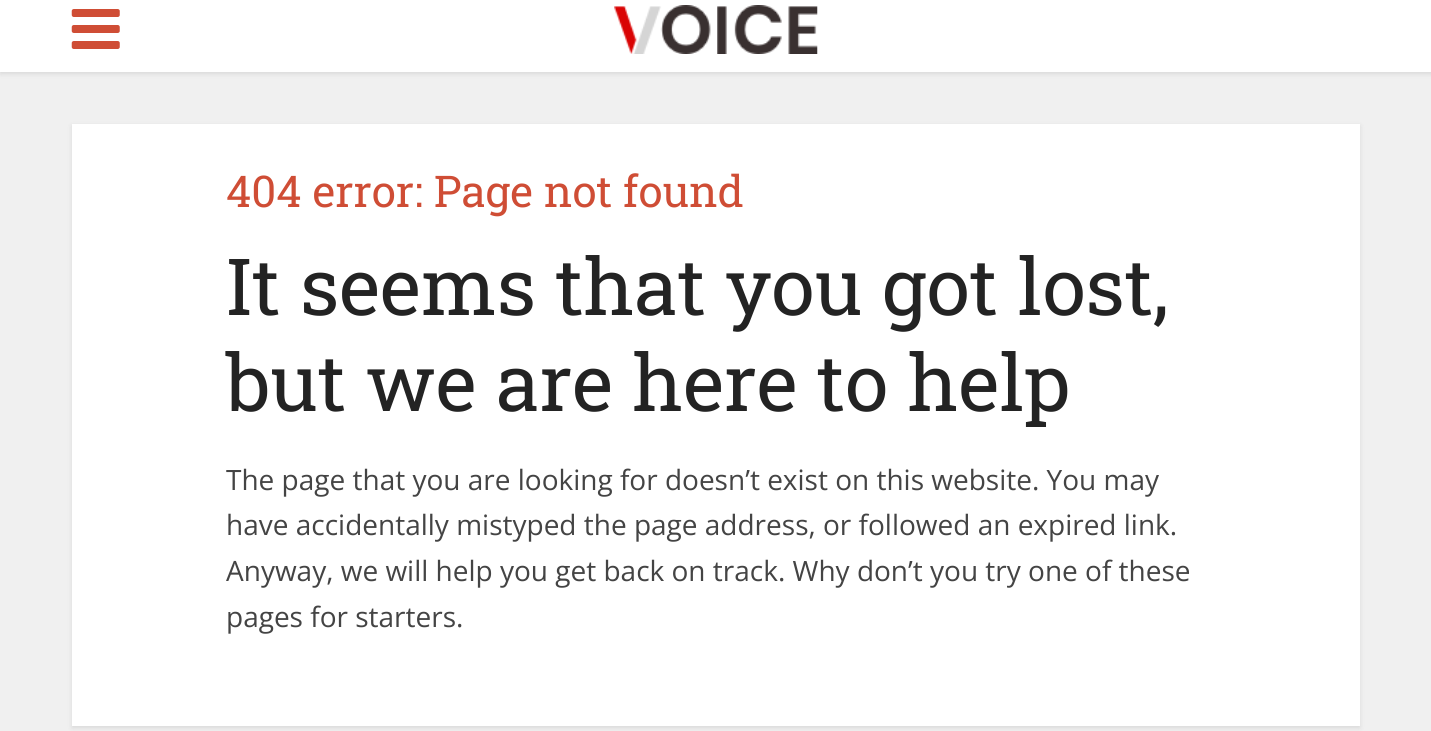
#include <cairo.h>
#include <math.h>
#include <stddef.h>

typedef struct { double x, y; const char *s; } line_t;

static void ink(cairo_t *ctx, unsigned color) {
    cairo_set_source_rgb(ctx, (color >> 16) / 255.0, (color >> 8 & 255) / 255.0, (color & 255) / 255.0);
}

static void round_path(cairo_t *ctx, double x, double y, double w, double h, double r) {
    cairo_new_sub_path(ctx);
    cairo_arc(ctx, x + w - r, y + h - r, r, 0, M_PI / 2);
    cairo_arc(ctx, x + r, y + h - r, r, M_PI / 2, M_PI);
    cairo_arc(ctx, x + r, y + r, r, M_PI, 1.5 * M_PI);
    cairo_arc(ctx, x + w - r, y + r, r, 1.5 * M_PI, 2 * M_PI);
    cairo_close_path(ctx);
}

static void blur_box(cairo_t *ctx, double x, double y, double w, double h, double r, double blur, double alpha) {
    cairo_push_group_with_content(ctx, CAIRO_CONTENT_ALPHA);
    cairo_set_operator(ctx, CAIRO_OPERATOR_SOURCE);
    for (int i = 15; i >= -15 && fmin(w, h) + blur * i / 3 > 0; i -= 2) {
        double e = blur * i / 6;
        cairo_set_source_rgba(ctx, 0, 0, 0, alpha * erfc((i - 1) / 8.5) / 2);
        round_path(ctx, x - e, y - e, w + 2 * e, h + 2 * e, fmax(0, fmin(r + e + blur * .6, fmin(w, h) / 2 + e)));
        cairo_fill(ctx);
    }
    cairo_pattern_t *soft = cairo_pop_group(ctx);
    cairo_mask(ctx, soft);
    cairo_pattern_destroy(soft);
}

static void paste(cairo_t *ctx, const char *path, double x, double y, double w, double h) {
    cairo_surface_t *image = cairo_image_surface_create_from_png(path);
    cairo_save(ctx);
    cairo_set_source_surface(ctx, image, x, y);
    cairo_rectangle(ctx, x, y, w, h);
    cairo_fill(ctx);
    cairo_restore(ctx);
    cairo_surface_destroy(image);
}

int main(void) {
    cairo_surface_t *surface = cairo_image_surface_create(CAIRO_FORMAT_RGB24, 1431, 731);
    cairo_t *ctx = cairo_create(surface);
    cairo_font_options_t *options = cairo_font_options_create();
    cairo_font_options_set_hint_metrics(options, CAIRO_HINT_METRICS_OFF);
    cairo_font_options_set_hint_style(options, CAIRO_HINT_STYLE_NONE);
    cairo_set_font_options(ctx, options);
    cairo_set_miter_limit(ctx, 4);
    ink(ctx, 0xF0F0F0);
    cairo_paint(ctx);
    ink(ctx, 0x000000);
    blur_box(ctx, 0, -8, 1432, 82, 0, 2.5, 0.1);
    ink(ctx, 0xFFFFFF);
    cairo_rectangle(ctx, 0, 0, 1431, 72);
    cairo_fill(ctx);
    paste(ctx, "media/1.png", 71, 9, 49, 40);
    paste(ctx, "media/2.png", 614, 5, 204, 49);
    ink(ctx, 0x000000);
    blur_box(ctx, 72, 126, 1288, 602, 0, 2.5, 0.1);
    ink(ctx, 0xFFFFFF);
    cairo_rectangle(ctx, 72, 124, 1288, 602);
    cairo_fill(ctx);
    cairo_select_font_face(ctx, "Roboto Slab", CAIRO_FONT_SLANT_NORMAL, CAIRO_FONT_WEIGHT_NORMAL);
    cairo_set_font_size(ctx, 43.75);
    ink(ctx, 0xCF4D35);
    cairo_move_to(ctx, 226, 207);
    cairo_show_text(ctx, "404 error: Page not found");
    cairo_set_font_size(ctx, 78.75);
    ink(ctx, 0x232323);
    cairo_move_to(ctx, 226, 315);
    cairo_show_text(ctx, "It seems that you got lost,");
    cairo_move_to(ctx, 226, 411);
    cairo_show_text(ctx, "but we are here to help");
    cairo_select_font_face(ctx, "Open Sans", CAIRO_FONT_SLANT_NORMAL, CAIRO_FONT_WEIGHT_NORMAL);
    cairo_set_font_size(ctx, 28);
    ink(ctx, 0x444444);
    {
        static const line_t items[] = {
            {226, 490, "The page that you are looking for doesn’t exist on this website. You may"},
            {226, 535, "have accidentally mistyped the page address, or followed an expired link."},
            {226, 581, "Anyway, we will help you get back on track. Why don’t you try one of these"},
            {226, 627, "pages for starters."},
        };
        for (size_t i = 0; i < sizeof items / sizeof *items; i++) {
            cairo_move_to(ctx, items[i].x, items[i].y);
            cairo_show_text(ctx, items[i].s);
        }
    }
    cairo_surface_write_to_png(surface, "image.png");
    cairo_font_options_destroy(options);
    cairo_destroy(ctx);
    cairo_surface_destroy(surface);
    return 0;
}
